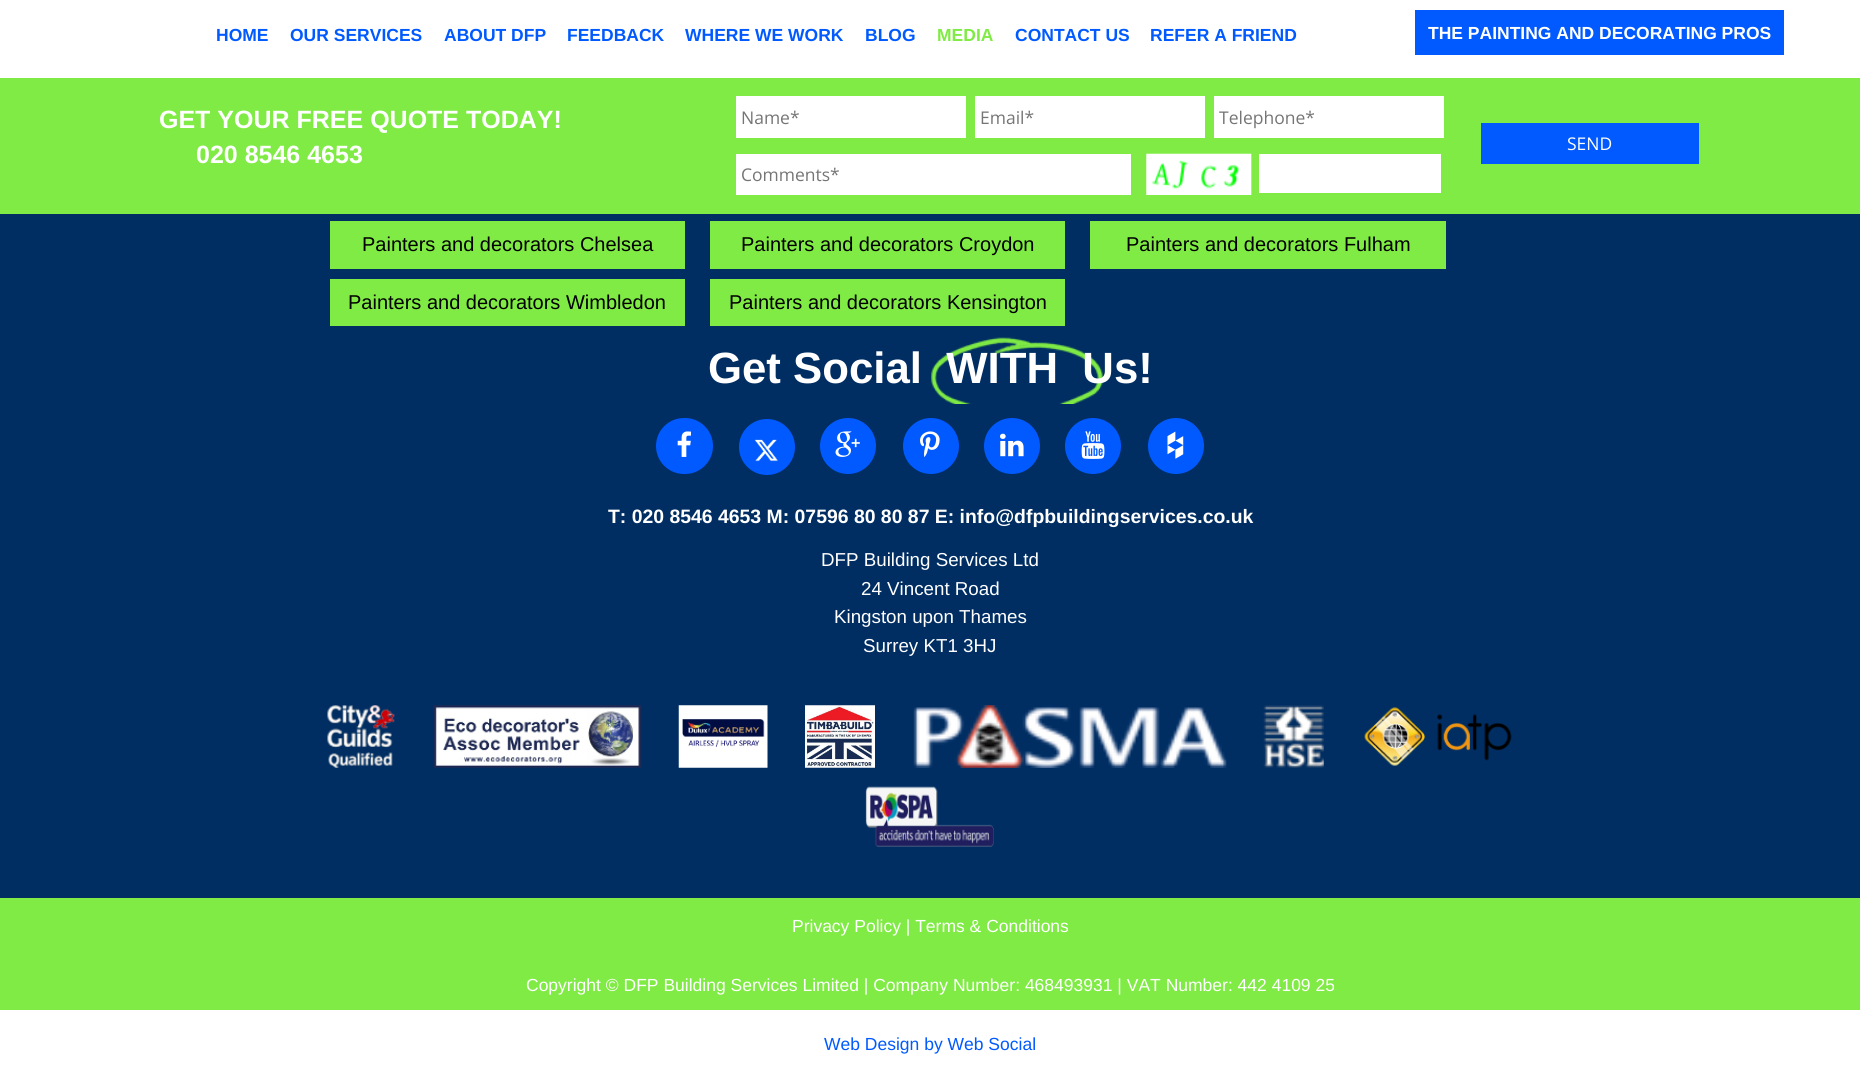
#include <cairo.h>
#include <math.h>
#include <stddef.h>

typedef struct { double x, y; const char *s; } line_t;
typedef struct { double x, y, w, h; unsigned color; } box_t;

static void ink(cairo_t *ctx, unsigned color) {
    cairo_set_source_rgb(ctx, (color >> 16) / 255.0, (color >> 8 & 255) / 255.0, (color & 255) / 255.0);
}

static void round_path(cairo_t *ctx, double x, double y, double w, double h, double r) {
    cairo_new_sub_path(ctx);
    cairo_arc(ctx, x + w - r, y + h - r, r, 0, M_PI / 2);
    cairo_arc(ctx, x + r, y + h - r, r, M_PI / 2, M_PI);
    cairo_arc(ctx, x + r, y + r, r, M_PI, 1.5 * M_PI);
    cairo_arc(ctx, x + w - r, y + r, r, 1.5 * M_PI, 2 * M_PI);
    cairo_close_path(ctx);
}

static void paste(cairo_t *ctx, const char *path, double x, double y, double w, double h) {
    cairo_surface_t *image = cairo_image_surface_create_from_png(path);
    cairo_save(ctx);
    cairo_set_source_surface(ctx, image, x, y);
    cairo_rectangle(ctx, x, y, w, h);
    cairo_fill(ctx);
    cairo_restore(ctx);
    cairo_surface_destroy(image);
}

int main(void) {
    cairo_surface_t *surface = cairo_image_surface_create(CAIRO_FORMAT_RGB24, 1860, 1073);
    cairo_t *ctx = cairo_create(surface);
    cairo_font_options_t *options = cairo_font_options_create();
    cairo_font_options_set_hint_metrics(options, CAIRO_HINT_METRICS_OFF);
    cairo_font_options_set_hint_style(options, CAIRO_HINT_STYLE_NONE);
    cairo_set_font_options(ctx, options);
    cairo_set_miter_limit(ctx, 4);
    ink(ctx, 0xFFFFFF);
    cairo_paint(ctx);
    cairo_select_font_face(ctx, "Liberation Sans", CAIRO_FONT_SLANT_NORMAL, CAIRO_FONT_WEIGHT_BOLD);
    cairo_set_font_size(ctx, 17.5);
    ink(ctx, 0x005AFF);
    {
        static const line_t items[] = {
            {216, 41, "HOME"},
            {290, 41, "OUR SERVICES"},
            {444, 41, "ABOUT DFP"},
            {567, 41, "FEEDBACK"},
            {685, 41, "WHERE WE WORK"},
            {865, 41, "BLOG"},
        };
        for (size_t i = 0; i < sizeof items / sizeof *items; i++) {
            cairo_move_to(ctx, items[i].x, items[i].y);
            cairo_show_text(ctx, items[i].s);
        }
    }
    ink(ctx, 0x7FEB44);
    cairo_move_to(ctx, 937, 41);
    cairo_show_text(ctx, "MEDIA");
    ink(ctx, 0x005AFF);
    cairo_move_to(ctx, 1015, 41);
    cairo_show_text(ctx, "CONTACT US");
    cairo_move_to(ctx, 1150, 41);
    cairo_show_text(ctx, "REFER A FRIEND");
    cairo_rectangle(ctx, 1415, 10, 369, 45);
    cairo_fill(ctx);
    ink(ctx, 0xFFFFFF);
    cairo_move_to(ctx, 1428, 39);
    cairo_show_text(ctx, "THE PAINTING AND DECORATING PROS");
    ink(ctx, 0x7FEB44);
    cairo_rectangle(ctx, 0, 78, 1860, 136);
    cairo_fill(ctx);
    cairo_set_font_size(ctx, 25);
    ink(ctx, 0xFFFFFF);
    cairo_move_to(ctx, 159, 128);
    cairo_show_text(ctx, "GET YOUR FREE QUOTE TODAY!");
    cairo_move_to(ctx, 196, 163);
    cairo_show_text(ctx, "020 8546 4653");
    cairo_rectangle(ctx, 736, 96, 230, 42);
    cairo_fill(ctx);
    cairo_select_font_face(ctx, "Open Sans", CAIRO_FONT_SLANT_NORMAL, CAIRO_FONT_WEIGHT_NORMAL);
    cairo_set_font_size(ctx, 17.5);
    ink(ctx, 0x757575);
    cairo_move_to(ctx, 741, 124);
    cairo_show_text(ctx, "Name*");
    ink(ctx, 0xFFFFFF);
    cairo_rectangle(ctx, 975, 96, 230, 42);
    cairo_fill(ctx);
    ink(ctx, 0x757575);
    cairo_move_to(ctx, 980, 124);
    cairo_show_text(ctx, "Email*");
    ink(ctx, 0xFFFFFF);
    cairo_rectangle(ctx, 1214, 96, 230, 42);
    cairo_fill(ctx);
    ink(ctx, 0x757575);
    cairo_move_to(ctx, 1219, 124);
    cairo_show_text(ctx, "Telephone*");
    ink(ctx, 0x005AFF);
    cairo_rectangle(ctx, 1481, 123, 218, 41);
    cairo_fill(ctx);
    ink(ctx, 0xFFFFFF);
    cairo_move_to(ctx, 1567, 150);
    cairo_show_text(ctx, "SEND");
    cairo_rectangle(ctx, 736, 154, 395, 41);
    cairo_fill(ctx);
    ink(ctx, 0x757575);
    cairo_move_to(ctx, 741, 181);
    cairo_show_text(ctx, "Comments*");
    paste(ctx, "media/1.png", 1146, 153, 106, 42);
    {
        static const box_t items[] = {
            {1259, 154, 182, 39, 0xFFFFFF},
            {0, 214, 1860, 684, 0x002E63},
            {330, 221, 355, 48, 0x7FEB44},
        };
        for (size_t i = 0; i < sizeof items / sizeof *items; i++) {
            ink(ctx, items[i].color);
            cairo_rectangle(ctx, items[i].x, items[i].y, items[i].w, items[i].h);
            cairo_fill(ctx);
        }
    }
    cairo_select_font_face(ctx, "Liberation Sans", CAIRO_FONT_SLANT_NORMAL, CAIRO_FONT_WEIGHT_NORMAL);
    cairo_set_font_size(ctx, 20);
    ink(ctx, 0x000000);
    cairo_move_to(ctx, 362, 251);
    cairo_show_text(ctx, "Painters and decorators Chelsea");
    ink(ctx, 0x7FEB44);
    cairo_rectangle(ctx, 710, 221, 355, 48);
    cairo_fill(ctx);
    ink(ctx, 0x000000);
    cairo_move_to(ctx, 741, 251);
    cairo_show_text(ctx, "Painters and decorators Croydon");
    ink(ctx, 0x7FEB44);
    cairo_rectangle(ctx, 1090, 221, 356, 48);
    cairo_fill(ctx);
    ink(ctx, 0x000000);
    cairo_move_to(ctx, 1126, 251);
    cairo_show_text(ctx, "Painters and decorators Fulham");
    ink(ctx, 0x7FEB44);
    cairo_rectangle(ctx, 330, 279, 355, 47);
    cairo_fill(ctx);
    ink(ctx, 0x000000);
    cairo_move_to(ctx, 348, 309);
    cairo_show_text(ctx, "Painters and decorators Wimbledon");
    ink(ctx, 0x7FEB44);
    cairo_rectangle(ctx, 710, 279, 355, 47);
    cairo_fill(ctx);
    ink(ctx, 0x000000);
    cairo_move_to(ctx, 729, 309);
    cairo_show_text(ctx, "Painters and decorators Kensington");
    paste(ctx, "media/2.png", 931, 337, 172, 67);
    cairo_select_font_face(ctx, "Liberation Sans", CAIRO_FONT_SLANT_NORMAL, CAIRO_FONT_WEIGHT_BOLD);
    cairo_set_font_size(ctx, 43.75);
    ink(ctx, 0xFFFFFF);
    cairo_move_to(ctx, 708, 383);
    cairo_show_text(ctx, "Get Social  WITH  Us!");
    ink(ctx, 0x005AFF);
    round_path(ctx, 656, 418, 57, 56, 28);
    cairo_fill(ctx);
    paste(ctx, "media/3.png", 677, 431, 14, 26);
    cairo_arc(ctx, 767, 447, 28, 0, 2 * M_PI);
    cairo_fill(ctx);
    paste(ctx, "media/4.png", 754, 439, 24, 23);
    cairo_arc(ctx, 848, 446, 28, 0, 2 * M_PI);
    cairo_fill(ctx);
    paste(ctx, "media/5.png", 835, 431, 25, 26);
    cairo_arc(ctx, 931, 446, 28, 0, 2 * M_PI);
    cairo_fill(ctx);
    paste(ctx, "media/6.png", 920, 431, 20, 26);
    cairo_arc(ctx, 1012, 446, 28, 0, 2 * M_PI);
    cairo_fill(ctx);
    paste(ctx, "media/7.png", 1000, 433, 24, 24);
    cairo_arc(ctx, 1093, 446, 28, 0, 2 * M_PI);
    cairo_fill(ctx);
    paste(ctx, "media/8.png", 1081, 431, 24, 28);
    cairo_arc(ctx, 1176, 446, 28, 0, 2 * M_PI);
    cairo_fill(ctx);
    paste(ctx, "media/9.png", 1167, 431, 17, 28);
    cairo_set_font_size(ctx, 19.4);
    ink(ctx, 0xFFFFFF);
    cairo_move_to(ctx, 608, 523);
    cairo_show_text(ctx, "T: 020 8546 4653 M: 07596 80 80 87 E: info@dfpbuildingservices.co.uk");
    cairo_select_font_face(ctx, "Liberation Sans", CAIRO_FONT_SLANT_NORMAL, CAIRO_FONT_WEIGHT_NORMAL);
    cairo_set_font_size(ctx, 18.75);
    {
        static const line_t items[] = {
            {821, 566, "DFP Building Services Ltd"},
            {861, 595, "24 Vincent Road"},
            {834, 623, "Kingston upon Thames"},
            {863, 652, "Surrey KT1 3HJ"},
        };
        for (size_t i = 0; i < sizeof items / sizeof *items; i++) {
            cairo_move_to(ctx, items[i].x, items[i].y);
            cairo_show_text(ctx, items[i].s);
        }
    }
    paste(ctx, "media/10.png", 327, 705, 68, 63);
    paste(ctx, "media/11.png", 433, 705, 209, 63);
    paste(ctx, "media/12.png", 678, 705, 90, 63);
    paste(ctx, "media/13.png", 805, 705, 70, 63);
    paste(ctx, "media/14.png", 913, 705, 314, 63);
    paste(ctx, "media/15.png", 1263, 705, 61, 63);
    paste(ctx, "media/16.png", 1364, 707, 148, 59);
    paste(ctx, "media/17.png", 865, 786, 129, 61);
    ink(ctx, 0x7FEB44);
    cairo_rectangle(ctx, 0, 898, 1860, 112);
    cairo_fill(ctx);
    cairo_set_font_size(ctx, 17.5);
    ink(ctx, 0xFFFFFF);
    cairo_move_to(ctx, 792, 932);
    cairo_show_text(ctx, "Privacy Policy | Terms & Conditions");
    cairo_move_to(ctx, 526, 991);
    cairo_show_text(ctx, "Copyright © DFP Building Services Limited | Company Number: 468493931 | VAT Number: 442 4109 25");
    ink(ctx, 0x005AFF);
    cairo_move_to(ctx, 824, 1050);
    cairo_show_text(ctx, "Web Design by Web Social");
    cairo_surface_write_to_png(surface, "image.png");
    cairo_font_options_destroy(options);
    cairo_destroy(ctx);
    cairo_surface_destroy(surface);
    return 0;
}
